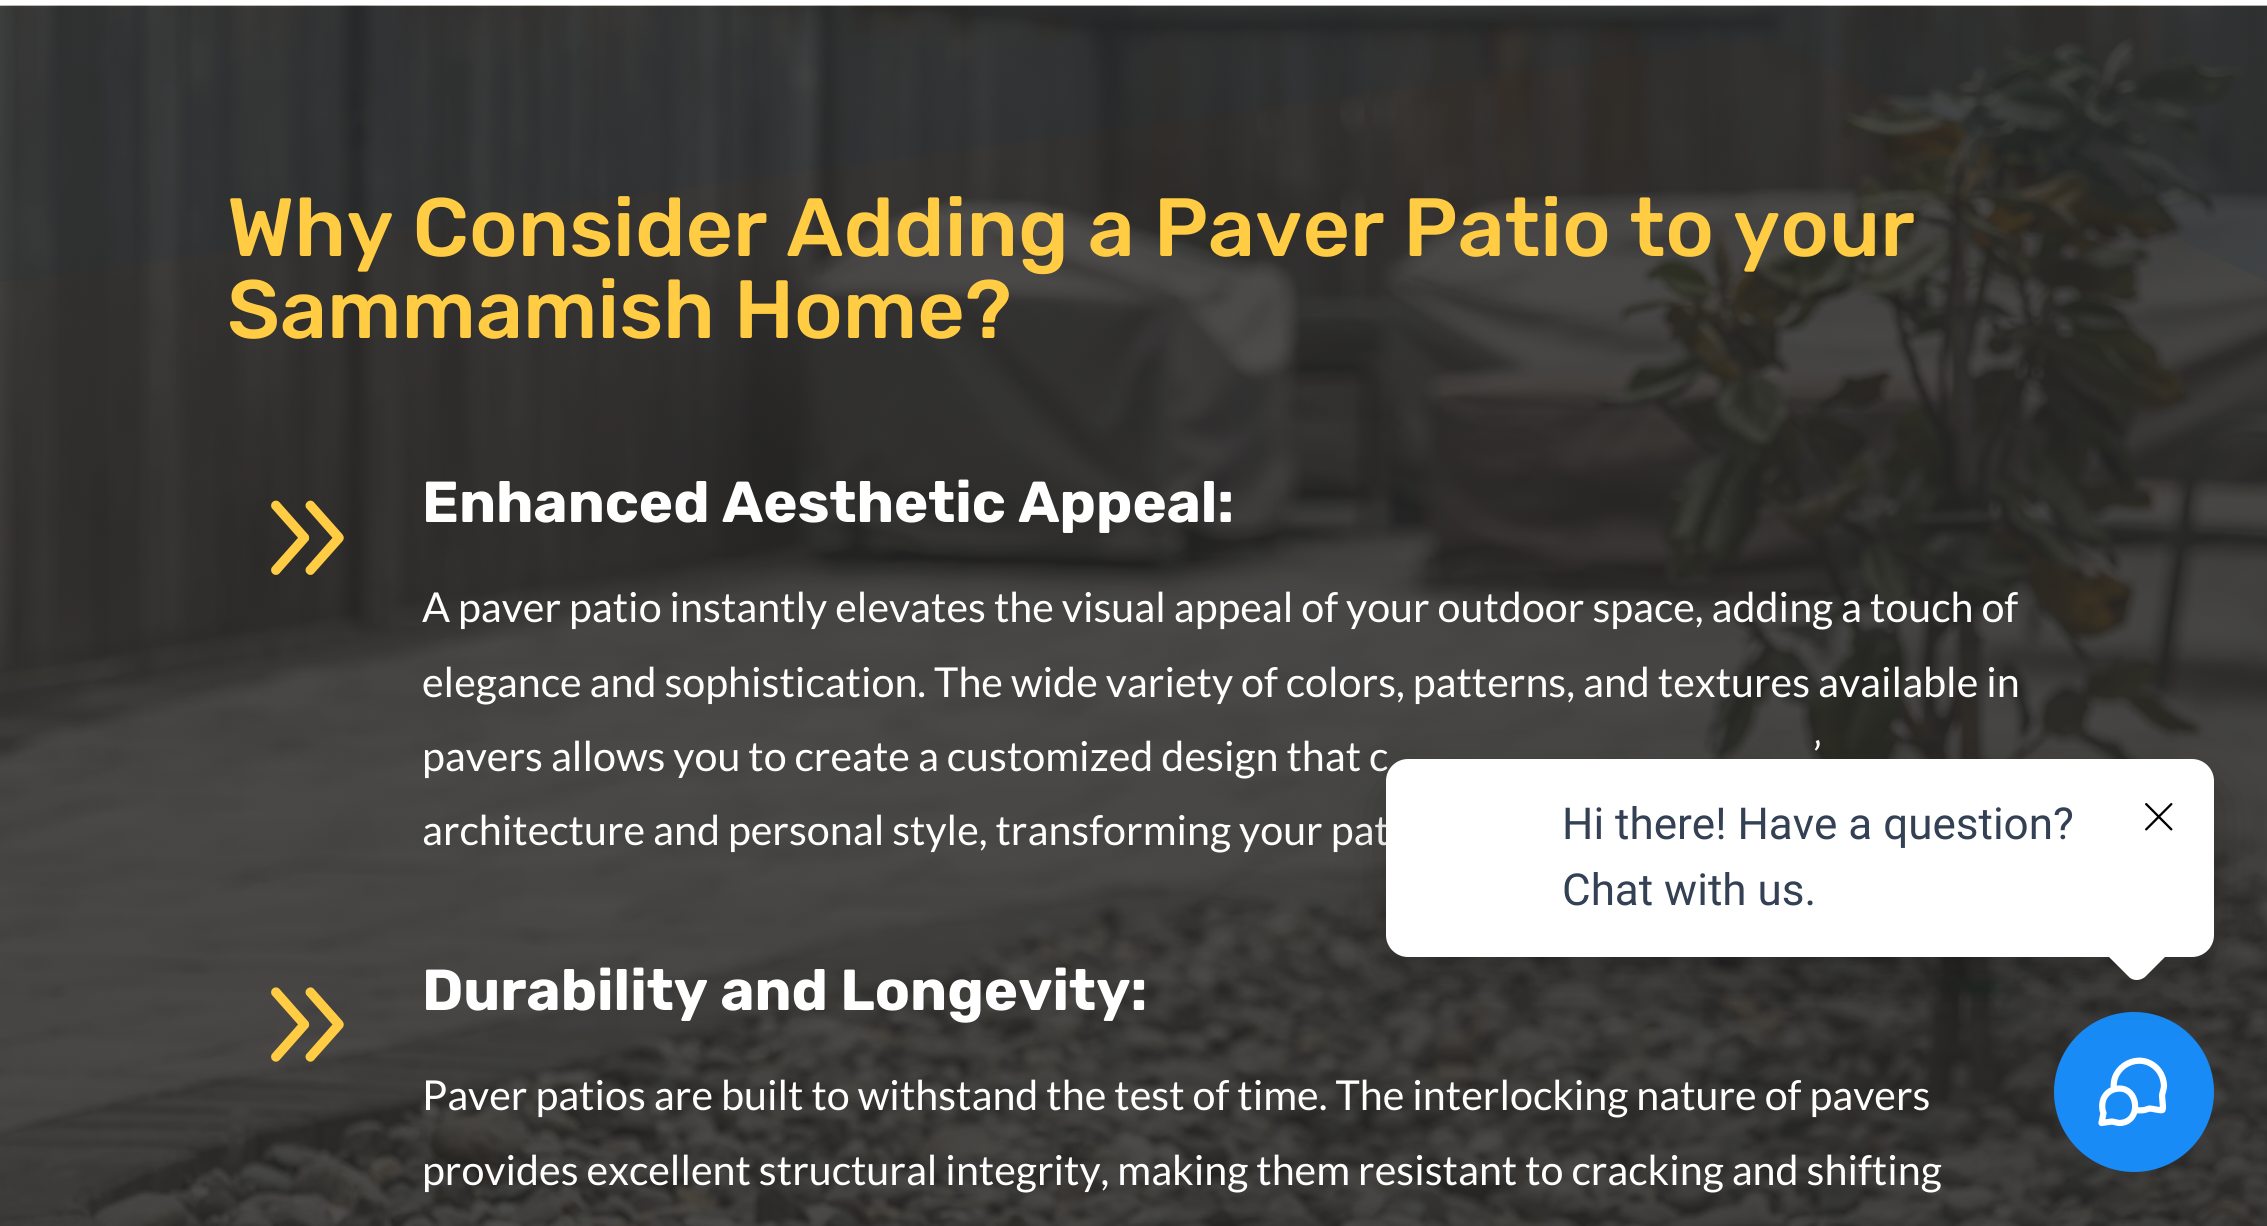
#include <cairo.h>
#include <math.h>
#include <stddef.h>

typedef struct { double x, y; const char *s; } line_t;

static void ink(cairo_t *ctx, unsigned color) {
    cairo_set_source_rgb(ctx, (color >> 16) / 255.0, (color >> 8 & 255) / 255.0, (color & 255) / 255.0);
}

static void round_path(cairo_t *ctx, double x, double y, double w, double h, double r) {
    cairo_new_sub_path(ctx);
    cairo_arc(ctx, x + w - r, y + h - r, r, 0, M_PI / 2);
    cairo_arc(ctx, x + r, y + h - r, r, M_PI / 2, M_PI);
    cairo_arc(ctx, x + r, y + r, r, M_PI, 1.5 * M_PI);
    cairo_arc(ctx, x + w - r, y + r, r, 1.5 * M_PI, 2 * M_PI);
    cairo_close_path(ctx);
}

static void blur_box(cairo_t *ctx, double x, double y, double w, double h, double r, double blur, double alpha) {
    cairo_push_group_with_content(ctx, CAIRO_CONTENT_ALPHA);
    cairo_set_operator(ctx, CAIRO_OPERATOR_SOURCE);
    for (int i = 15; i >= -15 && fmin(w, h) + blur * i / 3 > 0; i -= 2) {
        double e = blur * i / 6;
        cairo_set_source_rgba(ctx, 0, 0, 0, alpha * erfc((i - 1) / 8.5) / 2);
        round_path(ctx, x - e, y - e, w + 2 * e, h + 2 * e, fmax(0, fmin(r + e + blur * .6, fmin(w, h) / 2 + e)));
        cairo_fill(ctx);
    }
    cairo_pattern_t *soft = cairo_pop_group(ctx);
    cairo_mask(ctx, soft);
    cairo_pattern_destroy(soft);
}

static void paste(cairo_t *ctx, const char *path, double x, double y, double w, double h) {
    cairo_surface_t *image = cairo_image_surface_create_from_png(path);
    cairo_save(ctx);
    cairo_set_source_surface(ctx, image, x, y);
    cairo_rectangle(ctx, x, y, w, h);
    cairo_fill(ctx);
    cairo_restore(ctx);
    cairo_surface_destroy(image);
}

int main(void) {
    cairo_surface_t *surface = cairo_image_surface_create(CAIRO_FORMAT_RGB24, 2267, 1226);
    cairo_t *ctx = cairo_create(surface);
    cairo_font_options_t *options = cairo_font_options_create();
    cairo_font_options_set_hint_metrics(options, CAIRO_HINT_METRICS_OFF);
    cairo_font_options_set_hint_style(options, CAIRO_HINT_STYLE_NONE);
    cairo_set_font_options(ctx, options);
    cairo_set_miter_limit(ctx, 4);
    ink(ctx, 0xFFFFFF);
    cairo_paint(ctx);
    paste(ctx, "media/1.png", 0, 5, 2267, 1221);
    cairo_save(ctx);
    cairo_rectangle(ctx, 0, 6, 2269, 275);
    cairo_clip(ctx);
    cairo_set_source_rgba(ctx, 0.094, 0.208, 0.259, 0.11);
    cairo_new_path(ctx);
    cairo_move_to(ctx, 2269, 283);
    cairo_line_to(ctx, 1804, 55);
    cairo_curve_to(ctx, 1783, 44, 1759, 40, 1735, 43);
    cairo_line_to(ctx, 0, 283);
    cairo_line_to(ctx, 0, 8);
    cairo_line_to(ctx, 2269, 8);
    cairo_close_path(ctx);
    cairo_fill(ctx);
    cairo_restore(ctx);
    cairo_select_font_face(ctx, "Rubik Medium", CAIRO_FONT_SLANT_NORMAL, CAIRO_FONT_WEIGHT_NORMAL);
    cairo_set_font_size(ctx, 82.5);
    ink(ctx, 0xFFCC43);
    cairo_move_to(ctx, 227, 256);
    cairo_show_text(ctx, "Why Consider Adding a Paver Patio to your");
    cairo_move_to(ctx, 227, 338);
    cairo_show_text(ctx, "Sammamish Home?");
    paste(ctx, "media/2.png", 271, 500, 73, 75);
    cairo_select_font_face(ctx, "Rubik", CAIRO_FONT_SLANT_NORMAL, CAIRO_FONT_WEIGHT_BOLD);
    cairo_set_font_size(ctx, 57.75);
    ink(ctx, 0xFFFFFF);
    cairo_move_to(ctx, 422, 522);
    cairo_show_text(ctx, "Enhanced Aesthetic Appeal:");
    cairo_select_font_face(ctx, "Lato", CAIRO_FONT_SLANT_NORMAL, CAIRO_FONT_WEIGHT_NORMAL);
    cairo_set_font_size(ctx, 41.25);
    {
        static const line_t items[] = {
            {422, 622, "A paver patio instantly elevates the visual appeal of your outdoor space, adding a touch of"},
            {422, 697, "elegance and sophistication. The wide variety of colors, patterns, and textures available in"},
            {422, 771, "pavers allows you to create a customized design that c"},
            {1813, 771, "’"},
            {422, 845, "architecture and personal style, transforming your pat"},
        };
        for (size_t i = 0; i < sizeof items / sizeof *items; i++) {
            cairo_move_to(ctx, items[i].x, items[i].y);
            cairo_show_text(ctx, items[i].s);
        }
    }
    paste(ctx, "media/3.png", 271, 987, 73, 75);
    cairo_select_font_face(ctx, "Rubik", CAIRO_FONT_SLANT_NORMAL, CAIRO_FONT_WEIGHT_BOLD);
    cairo_set_font_size(ctx, 57.75);
    cairo_move_to(ctx, 422, 1010);
    cairo_show_text(ctx, "Durability and Longevity:");
    cairo_select_font_face(ctx, "Lato", CAIRO_FONT_SLANT_NORMAL, CAIRO_FONT_WEIGHT_NORMAL);
    cairo_set_font_size(ctx, 41.25);
    cairo_move_to(ctx, 422, 1110);
    cairo_show_text(ctx, "Paver patios are built to withstand the test of time. The interlocking nature of pavers");
    cairo_move_to(ctx, 422, 1185);
    cairo_show_text(ctx, "provides excellent structural integrity, making them resistant to cracking and shifting");
    ink(ctx, 0x188BF6);
    cairo_new_path(ctx);
    cairo_arc(ctx, 2134, 1092, 80, 0, 2 * M_PI);
    cairo_fill(ctx);
    cairo_new_path(ctx);
    cairo_move_to(ctx, 2114, 1089.5);
    cairo_curve_to(ctx, 2110.5, 1066, 2139.5, 1051, 2156.5, 1068);
    cairo_curve_to(ctx, 2161.5, 1073, 2163.5, 1079, 2164, 1085.5);
    cairo_curve_to(ctx, 2164, 1089, 2162.5, 1092, 2162, 1095.5);
    cairo_line_to(ctx, 2163, 1107.5);
    cairo_line_to(ctx, 2162.5, 1110);
    cairo_curve_to(ctx, 2161.5, 1111, 2152, 1108.5, 2149.5, 1108.5);
    cairo_line_to(ctx, 2144.5, 1110);
    cairo_curve_to(ctx, 2141.5, 1110.5, 2138, 1110.5, 2135, 1110);
    cairo_move_to(ctx, 2119, 1123);
    cairo_curve_to(ctx, 2143, 1123, 2139, 1084, 2115.5, 1089);
    cairo_curve_to(ctx, 2110, 1090, 2105.5, 1094, 2103.5, 1099);
    cairo_curve_to(ctx, 2102, 1102.5, 2102, 1106.5, 2102.5, 1110);
    cairo_line_to(ctx, 2103.5, 1113);
    cairo_line_to(ctx, 2101.5, 1123);
    cairo_line_to(ctx, 2112, 1121.5);
    cairo_close_path(ctx);
    ink(ctx, 0xFFFFFF);
    cairo_set_line_width(ctx, 6.2);
    cairo_set_line_cap(ctx, CAIRO_LINE_CAP_ROUND);
    cairo_set_line_join(ctx, CAIRO_LINE_JOIN_ROUND);
    cairo_stroke(ctx);
    ink(ctx, 0x000000);
    blur_box(ctx, 1386, 781, 828, 198, 22, 27.5, 0.24);
    ink(ctx, 0xFFFFFF);
    round_path(ctx, 1386, 759, 828, 198, 22);
    cairo_fill(ctx);
    cairo_select_font_face(ctx, "Roboto", CAIRO_FONT_SLANT_NORMAL, CAIRO_FONT_WEIGHT_NORMAL);
    cairo_set_font_size(ctx, 44);
    ink(ctx, 0x344054);
    cairo_move_to(ctx, 1562, 839);
    cairo_show_text(ctx, "Hi there! Have a question?");
    cairo_move_to(ctx, 1562, 905);
    cairo_show_text(ctx, "Chat with us.");
    ink(ctx, 0xFFFFFF);
    cairo_new_path(ctx);
    cairo_move_to(ctx, 2145, 915);
    cairo_line_to(ctx, 2168, 938);
    cairo_curve_to(ctx, 2172, 943, 2172, 949, 2168, 954);
    cairo_line_to(ctx, 2145, 977);
    cairo_curve_to(ctx, 2140, 981, 2133, 981, 2129, 977);
    cairo_line_to(ctx, 2106, 954);
    cairo_curve_to(ctx, 2101, 949, 2101, 943, 2106, 938);
    cairo_line_to(ctx, 2129, 915);
    cairo_curve_to(ctx, 2133, 911, 2140, 911, 2145, 915);
    cairo_close_path(ctx);
    cairo_fill(ctx);
    paste(ctx, "media/4.png", 2145, 803, 28, 28);
    cairo_surface_write_to_png(surface, "image.png");
    cairo_font_options_destroy(options);
    cairo_destroy(ctx);
    cairo_surface_destroy(surface);
    return 0;
}
